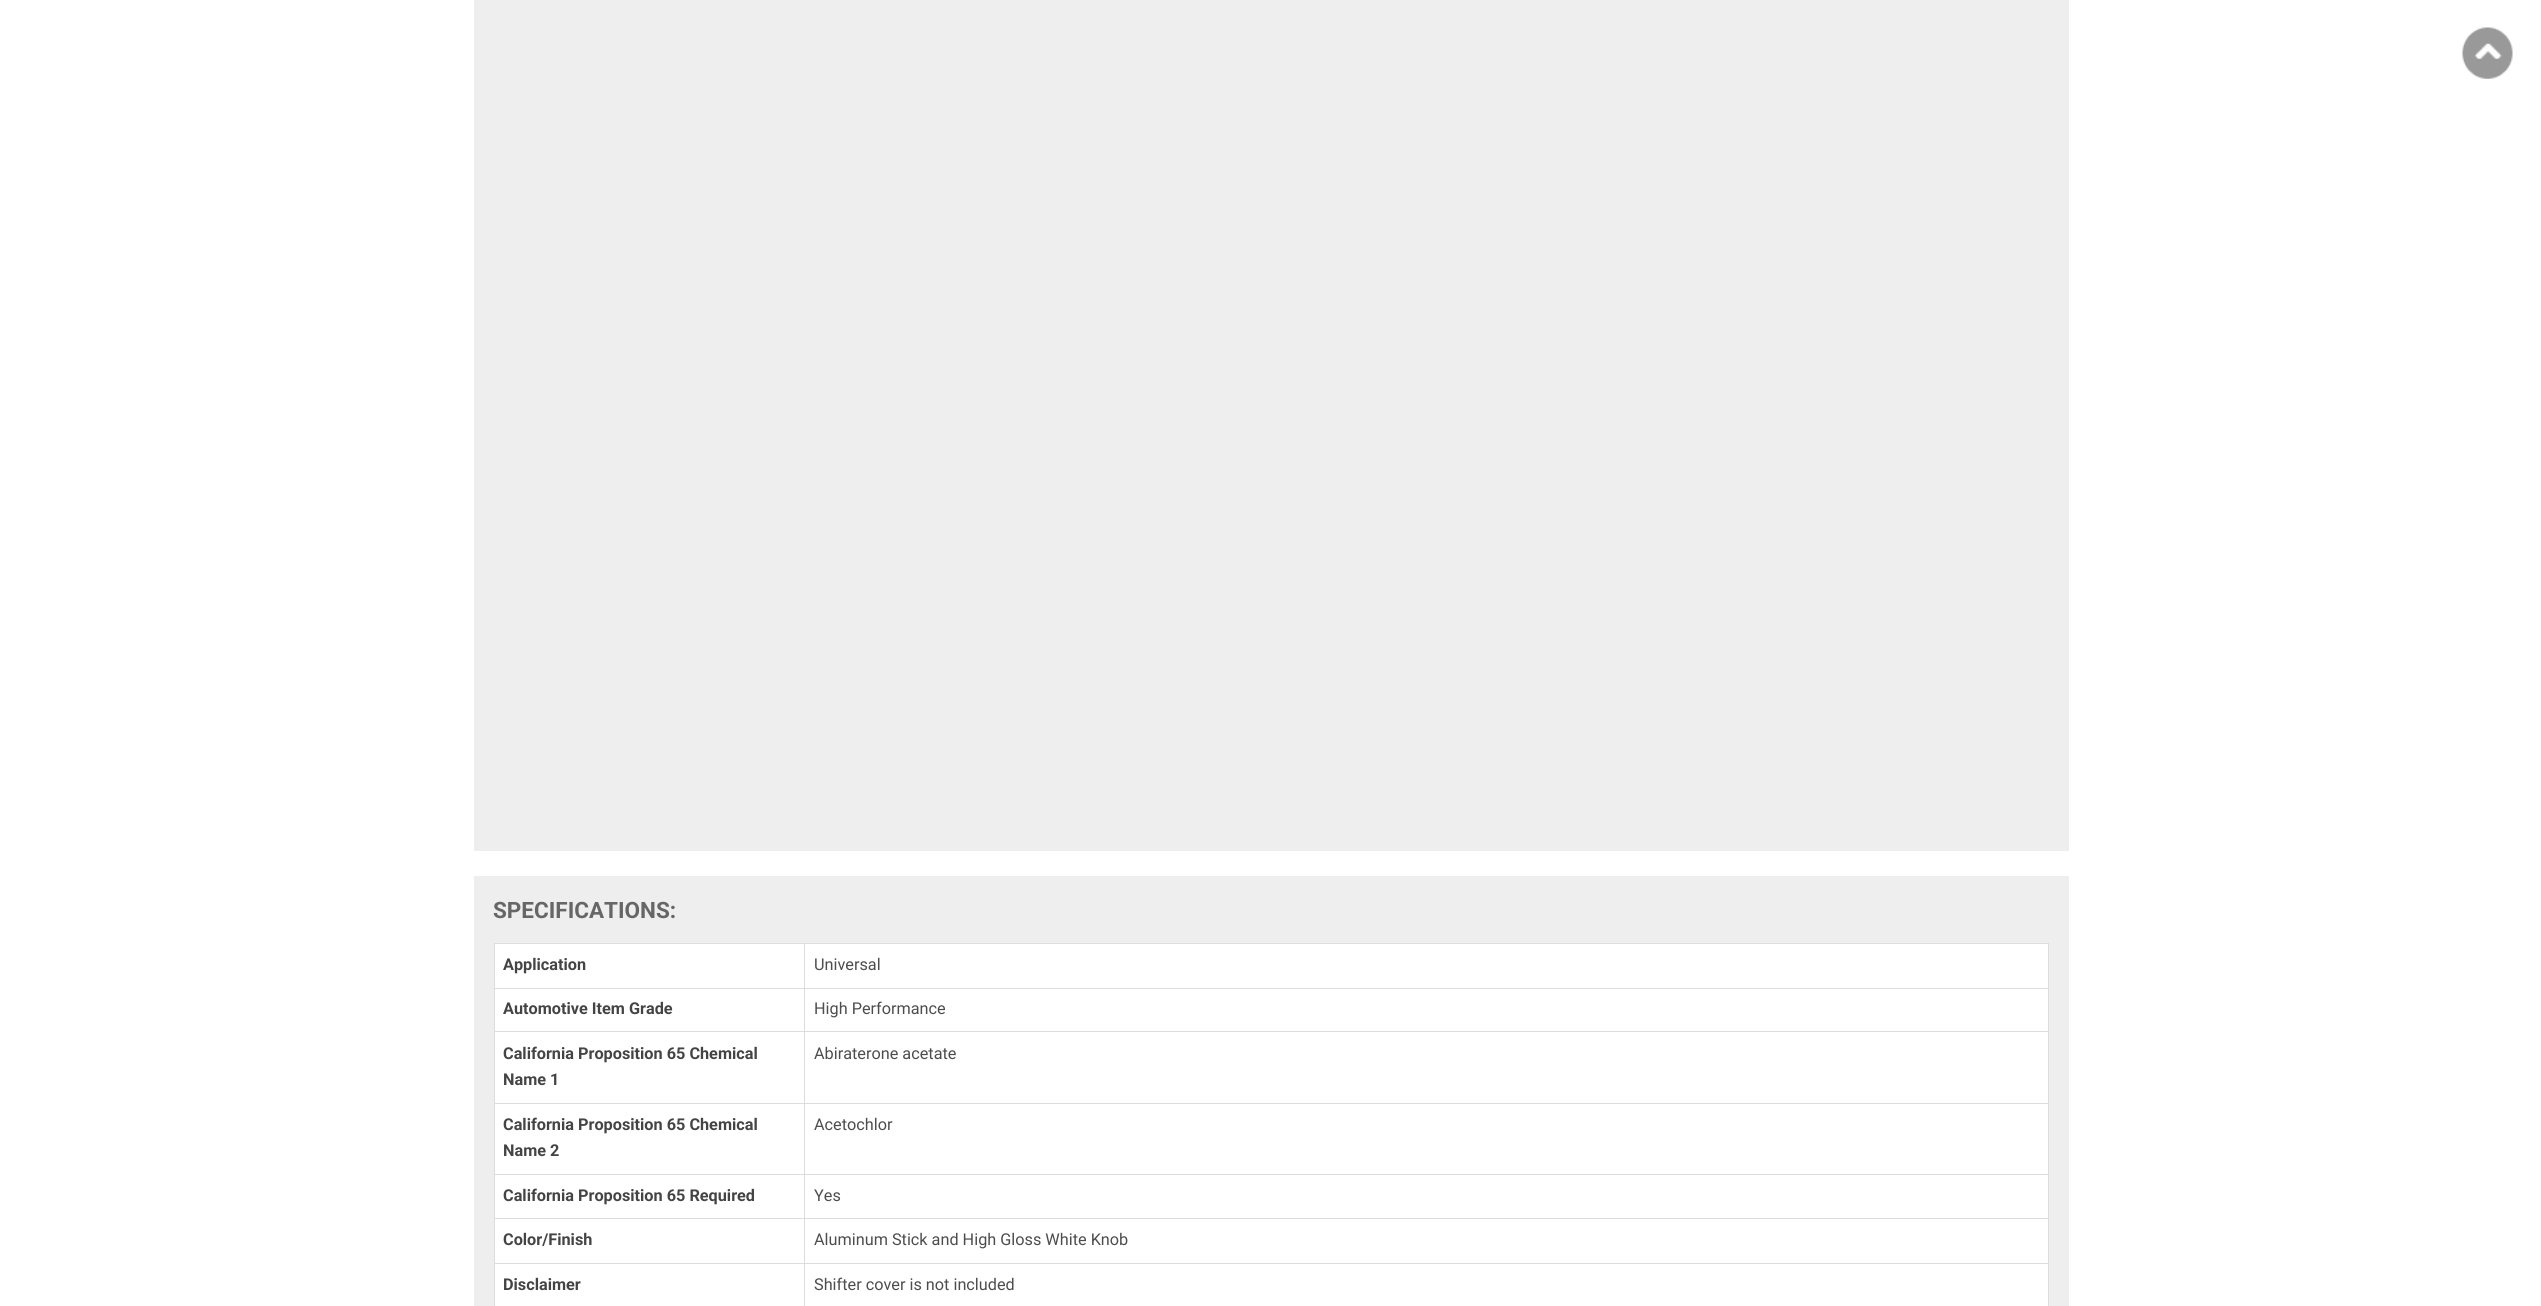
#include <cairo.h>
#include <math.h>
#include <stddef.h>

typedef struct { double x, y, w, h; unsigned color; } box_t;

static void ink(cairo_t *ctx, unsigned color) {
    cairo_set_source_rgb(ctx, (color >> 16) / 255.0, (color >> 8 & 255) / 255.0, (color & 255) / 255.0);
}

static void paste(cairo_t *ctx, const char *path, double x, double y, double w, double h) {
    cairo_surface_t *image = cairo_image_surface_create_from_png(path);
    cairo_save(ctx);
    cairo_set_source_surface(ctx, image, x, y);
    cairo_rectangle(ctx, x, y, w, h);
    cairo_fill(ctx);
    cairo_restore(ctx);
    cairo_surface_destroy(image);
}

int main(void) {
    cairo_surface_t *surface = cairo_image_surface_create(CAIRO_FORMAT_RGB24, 2541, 1306);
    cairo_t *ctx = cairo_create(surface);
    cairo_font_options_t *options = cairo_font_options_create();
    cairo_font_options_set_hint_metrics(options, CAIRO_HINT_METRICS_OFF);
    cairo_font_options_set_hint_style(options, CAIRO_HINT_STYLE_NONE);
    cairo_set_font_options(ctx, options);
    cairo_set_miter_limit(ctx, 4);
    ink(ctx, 0xFFFFFF);
    cairo_paint(ctx);
    paste(ctx, "media/1.png", 2462, 27, 51, 52);
    ink(ctx, 0xEEEEEE);
    cairo_rectangle(ctx, 474, 0, 1595, 851);
    cairo_fill(ctx);
    cairo_rectangle(ctx, 474, 876, 1595, 430);
    cairo_fill(ctx);
    cairo_select_font_face(ctx, "Roboto", CAIRO_FONT_SLANT_NORMAL, CAIRO_FONT_WEIGHT_BOLD);
    cairo_set_font_size(ctx, 22.5);
    ink(ctx, 0x666666);
    cairo_move_to(ctx, 493, 918);
    cairo_show_text(ctx, "SPECIFICATIONS:");
    {
        static const box_t items[] = {
            {494, 943, 1555, 1, 0xDDDDDD},
            {494, 943, 1, 363, 0xDDDDDD},
            {495, 944, 309, 44, 0xFFFFFF},
            {805, 989, 1243, 114, 0xFFFFFF},
            {804, 1263, 1, 43, 0xDDDDDD},
            {2048, 943, 1, 363, 0xDDDDDD},
            {804, 1263, 1245, 1, 0xDDDDDD},
            {804, 1218, 1, 46, 0xDDDDDD},
            {804, 1218, 1245, 1, 0xDDDDDD},
            {804, 1174, 1, 45, 0xDDDDDD},
            {804, 1174, 1245, 1, 0xDDDDDD},
            {804, 1103, 1, 72, 0xDDDDDD},
            {804, 1103, 1245, 1, 0xDDDDDD},
            {804, 1031, 1, 73, 0xDDDDDD},
            {804, 1031, 1245, 1, 0xDDDDDD},
            {804, 988, 1, 45, 0xDDDDDD},
            {804, 988, 1245, 1, 0xDDDDDD},
            {804, 943, 1, 46, 0xDDDDDD},
            {494, 988, 311, 1, 0xDDDDDD},
        };
        for (size_t i = 0; i < sizeof items / sizeof *items; i++) {
            ink(ctx, items[i].color);
            cairo_rectangle(ctx, items[i].x, items[i].y, items[i].w, items[i].h);
            cairo_fill(ctx);
        }
    }
    cairo_set_font_size(ctx, 16.25);
    ink(ctx, 0x444444);
    cairo_move_to(ctx, 503, 970);
    cairo_show_text(ctx, "Application");
    ink(ctx, 0xFFFFFF);
    cairo_rectangle(ctx, 805, 944, 1243, 44);
    cairo_fill(ctx);
    cairo_select_font_face(ctx, "Roboto", CAIRO_FONT_SLANT_NORMAL, CAIRO_FONT_WEIGHT_NORMAL);
    ink(ctx, 0x4D4D4D);
    cairo_move_to(ctx, 814, 970);
    cairo_show_text(ctx, "Universal");
    ink(ctx, 0xFFFFFF);
    cairo_rectangle(ctx, 495, 989, 309, 114);
    cairo_fill(ctx);
    ink(ctx, 0xDDDDDD);
    cairo_rectangle(ctx, 494, 1031, 311, 1);
    cairo_fill(ctx);
    cairo_select_font_face(ctx, "Roboto", CAIRO_FONT_SLANT_NORMAL, CAIRO_FONT_WEIGHT_BOLD);
    ink(ctx, 0x444444);
    cairo_move_to(ctx, 503, 1014);
    cairo_show_text(ctx, "Automotive Item Grade");
    cairo_select_font_face(ctx, "Roboto", CAIRO_FONT_SLANT_NORMAL, CAIRO_FONT_WEIGHT_NORMAL);
    ink(ctx, 0x4D4D4D);
    cairo_move_to(ctx, 814, 1014);
    cairo_show_text(ctx, "High Performance");
    ink(ctx, 0xDDDDDD);
    cairo_rectangle(ctx, 494, 1103, 311, 1);
    cairo_fill(ctx);
    cairo_select_font_face(ctx, "Roboto", CAIRO_FONT_SLANT_NORMAL, CAIRO_FONT_WEIGHT_BOLD);
    ink(ctx, 0x444444);
    cairo_move_to(ctx, 503, 1059);
    cairo_show_text(ctx, "California Proposition 65 Chemical");
    cairo_move_to(ctx, 503, 1085);
    cairo_show_text(ctx, "Name 1");
    cairo_select_font_face(ctx, "Roboto", CAIRO_FONT_SLANT_NORMAL, CAIRO_FONT_WEIGHT_NORMAL);
    ink(ctx, 0x4D4D4D);
    cairo_move_to(ctx, 814, 1059);
    cairo_show_text(ctx, "Abiraterone acetate");
    ink(ctx, 0xFFFFFF);
    cairo_rectangle(ctx, 495, 1104, 309, 70);
    cairo_fill(ctx);
    ink(ctx, 0xDDDDDD);
    cairo_rectangle(ctx, 494, 1174, 311, 1);
    cairo_fill(ctx);
    cairo_select_font_face(ctx, "Roboto", CAIRO_FONT_SLANT_NORMAL, CAIRO_FONT_WEIGHT_BOLD);
    ink(ctx, 0x444444);
    cairo_move_to(ctx, 503, 1130);
    cairo_show_text(ctx, "California Proposition 65 Chemical");
    cairo_move_to(ctx, 503, 1156);
    cairo_show_text(ctx, "Name 2");
    ink(ctx, 0xFFFFFF);
    cairo_rectangle(ctx, 805, 1104, 1243, 70);
    cairo_fill(ctx);
    cairo_select_font_face(ctx, "Roboto", CAIRO_FONT_SLANT_NORMAL, CAIRO_FONT_WEIGHT_NORMAL);
    ink(ctx, 0x4D4D4D);
    cairo_move_to(ctx, 814, 1130);
    cairo_show_text(ctx, "Acetochlor");
    ink(ctx, 0xFFFFFF);
    cairo_rectangle(ctx, 495, 1175, 309, 43);
    cairo_fill(ctx);
    ink(ctx, 0xDDDDDD);
    cairo_rectangle(ctx, 494, 1218, 311, 1);
    cairo_fill(ctx);
    cairo_select_font_face(ctx, "Roboto", CAIRO_FONT_SLANT_NORMAL, CAIRO_FONT_WEIGHT_BOLD);
    ink(ctx, 0x444444);
    cairo_move_to(ctx, 503, 1201);
    cairo_show_text(ctx, "California Proposition 65 Required");
    ink(ctx, 0xFFFFFF);
    cairo_rectangle(ctx, 805, 1175, 1243, 43);
    cairo_fill(ctx);
    cairo_select_font_face(ctx, "Roboto", CAIRO_FONT_SLANT_NORMAL, CAIRO_FONT_WEIGHT_NORMAL);
    ink(ctx, 0x4D4D4D);
    cairo_move_to(ctx, 814, 1201);
    cairo_show_text(ctx, "Yes");
    ink(ctx, 0xFFFFFF);
    cairo_rectangle(ctx, 495, 1219, 309, 44);
    cairo_fill(ctx);
    ink(ctx, 0xDDDDDD);
    cairo_rectangle(ctx, 494, 1263, 311, 1);
    cairo_fill(ctx);
    cairo_select_font_face(ctx, "Roboto", CAIRO_FONT_SLANT_NORMAL, CAIRO_FONT_WEIGHT_BOLD);
    ink(ctx, 0x444444);
    cairo_move_to(ctx, 503, 1245);
    cairo_show_text(ctx, "Color/Finish");
    ink(ctx, 0xFFFFFF);
    cairo_rectangle(ctx, 805, 1219, 1243, 44);
    cairo_fill(ctx);
    cairo_select_font_face(ctx, "Roboto", CAIRO_FONT_SLANT_NORMAL, CAIRO_FONT_WEIGHT_NORMAL);
    ink(ctx, 0x4D4D4D);
    cairo_move_to(ctx, 814, 1245);
    cairo_show_text(ctx, "Aluminum Stick and High Gloss White Knob");
    ink(ctx, 0xFFFFFF);
    cairo_rectangle(ctx, 495, 1264, 309, 42);
    cairo_fill(ctx);
    cairo_select_font_face(ctx, "Roboto", CAIRO_FONT_SLANT_NORMAL, CAIRO_FONT_WEIGHT_BOLD);
    ink(ctx, 0x444444);
    cairo_move_to(ctx, 503, 1290);
    cairo_show_text(ctx, "Disclaimer");
    ink(ctx, 0xFFFFFF);
    cairo_rectangle(ctx, 805, 1264, 1243, 42);
    cairo_fill(ctx);
    cairo_select_font_face(ctx, "Roboto", CAIRO_FONT_SLANT_NORMAL, CAIRO_FONT_WEIGHT_NORMAL);
    ink(ctx, 0x4D4D4D);
    cairo_move_to(ctx, 814, 1290);
    cairo_show_text(ctx, "Shifter cover is not included");
    cairo_surface_write_to_png(surface, "image.png");
    cairo_font_options_destroy(options);
    cairo_destroy(ctx);
    cairo_surface_destroy(surface);
    return 0;
}
